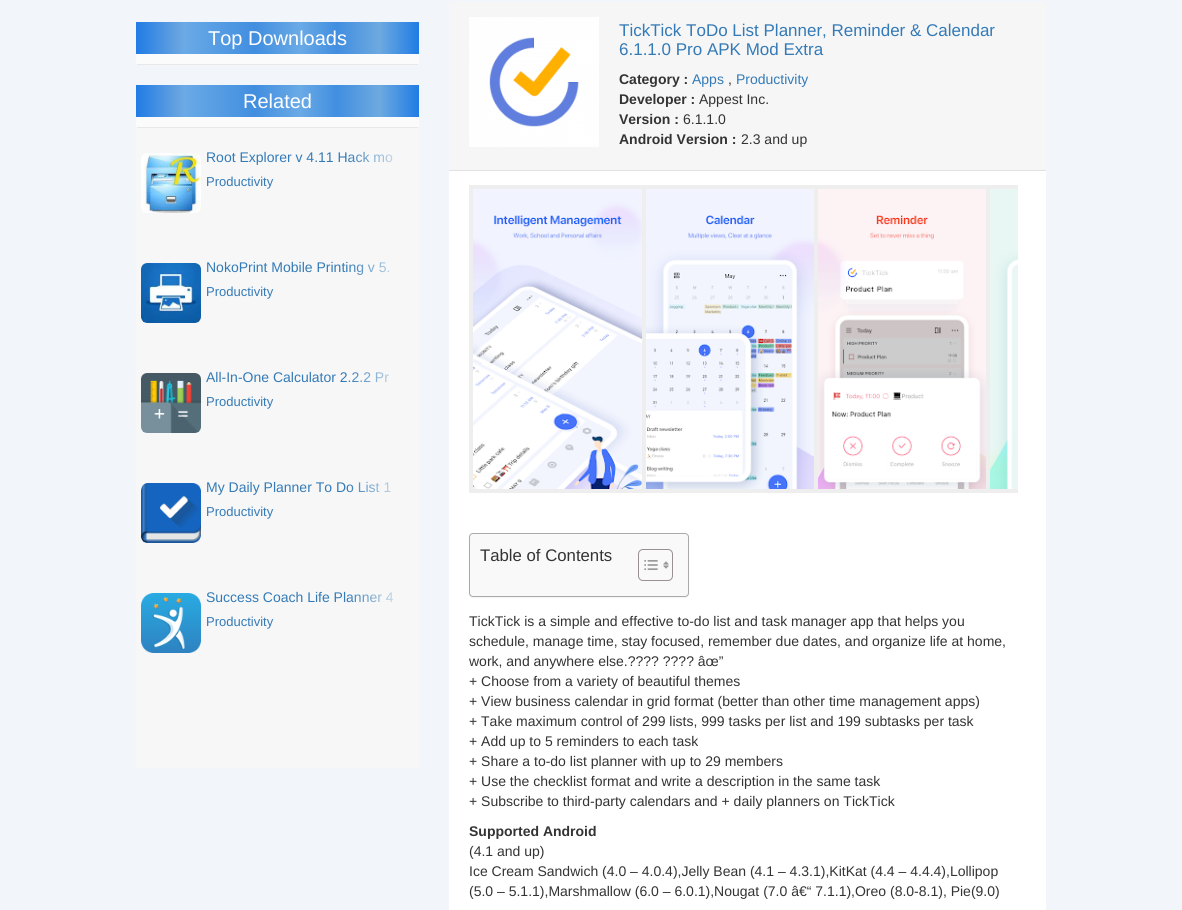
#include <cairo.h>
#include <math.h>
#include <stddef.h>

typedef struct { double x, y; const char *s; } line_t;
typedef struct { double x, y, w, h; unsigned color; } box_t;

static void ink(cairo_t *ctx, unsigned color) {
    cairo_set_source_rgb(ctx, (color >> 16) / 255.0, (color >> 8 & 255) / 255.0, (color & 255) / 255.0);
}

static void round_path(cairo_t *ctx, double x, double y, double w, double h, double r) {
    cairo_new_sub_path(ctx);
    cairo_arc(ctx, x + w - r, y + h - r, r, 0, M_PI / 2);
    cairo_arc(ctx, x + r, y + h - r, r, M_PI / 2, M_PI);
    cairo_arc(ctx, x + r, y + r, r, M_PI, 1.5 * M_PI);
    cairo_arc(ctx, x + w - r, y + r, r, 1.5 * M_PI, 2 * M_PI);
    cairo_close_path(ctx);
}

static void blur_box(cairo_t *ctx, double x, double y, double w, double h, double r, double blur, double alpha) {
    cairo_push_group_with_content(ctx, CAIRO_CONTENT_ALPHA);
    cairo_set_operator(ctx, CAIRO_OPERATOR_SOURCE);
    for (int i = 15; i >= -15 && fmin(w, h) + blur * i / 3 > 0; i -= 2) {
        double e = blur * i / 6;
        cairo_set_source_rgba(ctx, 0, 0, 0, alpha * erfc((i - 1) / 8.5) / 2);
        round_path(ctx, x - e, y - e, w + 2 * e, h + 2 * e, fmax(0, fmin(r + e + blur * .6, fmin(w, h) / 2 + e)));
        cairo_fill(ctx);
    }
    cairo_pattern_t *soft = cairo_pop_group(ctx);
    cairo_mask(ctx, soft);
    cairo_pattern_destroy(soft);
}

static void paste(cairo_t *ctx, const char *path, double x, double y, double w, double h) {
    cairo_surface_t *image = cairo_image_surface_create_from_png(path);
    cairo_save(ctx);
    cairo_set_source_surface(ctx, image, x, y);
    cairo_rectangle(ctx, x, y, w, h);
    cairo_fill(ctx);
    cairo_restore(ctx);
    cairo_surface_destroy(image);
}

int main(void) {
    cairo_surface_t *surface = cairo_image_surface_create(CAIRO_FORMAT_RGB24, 1182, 910);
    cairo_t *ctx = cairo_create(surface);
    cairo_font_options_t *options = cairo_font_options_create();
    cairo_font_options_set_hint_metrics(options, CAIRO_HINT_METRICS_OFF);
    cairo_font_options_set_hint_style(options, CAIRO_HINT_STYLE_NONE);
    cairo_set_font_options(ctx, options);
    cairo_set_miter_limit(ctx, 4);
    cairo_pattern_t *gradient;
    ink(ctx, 0xF2F5F9);
    cairo_paint(ctx);
    ink(ctx, 0xF7F7F7);
    cairo_rectangle(ctx, 136, 63, 283, 2);
    cairo_fill(ctx);
    ink(ctx, 0xFBFBFB);
    round_path(ctx, 136, 22, 283, 43, 2);
    cairo_fill(ctx);
    ink(ctx, 0xE8E8E8);
    cairo_rectangle(ctx, 137, 64, 281, 1);
    cairo_fill(ctx);
    gradient = cairo_pattern_create_linear(136, 38, 419, 38);
    cairo_pattern_add_color_stop_rgba(gradient, 0, 0.125, 0.486, 0.898, 1);
    cairo_pattern_add_color_stop_rgba(gradient, 0.15, 0.404, 0.639, 0.878, 1);
    cairo_pattern_add_color_stop_rgba(gradient, 0.17, 0.416, 0.667, 0.902, 1);
    cairo_pattern_add_color_stop_rgba(gradient, 0.42, 0.255, 0.557, 0.878, 1);
    cairo_pattern_add_color_stop_rgba(gradient, 0.58, 0.416, 0.667, 0.902, 1);
    cairo_pattern_add_color_stop_rgba(gradient, 0.71, 0.255, 0.557, 0.878, 1);
    cairo_pattern_add_color_stop_rgba(gradient, 0.86, 0.431, 0.663, 0.878, 1);
    cairo_pattern_add_color_stop_rgba(gradient, 1, 0.125, 0.486, 0.898, 1);
    cairo_set_source(ctx, gradient);
    cairo_pattern_destroy(gradient);
    cairo_rectangle(ctx, 136, 22, 283, 32);
    cairo_fill(ctx);
    cairo_select_font_face(ctx, "Liberation Sans", CAIRO_FONT_SLANT_NORMAL, CAIRO_FONT_WEIGHT_NORMAL);
    cairo_set_font_size(ctx, 20);
    ink(ctx, 0xFFFFFF);
    cairo_move_to(ctx, 208, 45);
    cairo_show_text(ctx, "Top Downloads");
    ink(ctx, 0xF7F7F7);
    cairo_rectangle(ctx, 136, 126, 283, 642);
    cairo_fill(ctx);
    ink(ctx, 0xFBFBFB);
    round_path(ctx, 136, 85, 283, 43, 2);
    cairo_fill(ctx);
    ink(ctx, 0xE8E8E8);
    cairo_rectangle(ctx, 137, 127, 281, 1);
    cairo_fill(ctx);
    gradient = cairo_pattern_create_linear(136, 101, 419, 101);
    cairo_pattern_add_color_stop_rgba(gradient, 0, 0.125, 0.486, 0.898, 1);
    cairo_pattern_add_color_stop_rgba(gradient, 0.15, 0.404, 0.639, 0.878, 1);
    cairo_pattern_add_color_stop_rgba(gradient, 0.17, 0.416, 0.667, 0.902, 1);
    cairo_pattern_add_color_stop_rgba(gradient, 0.42, 0.255, 0.557, 0.878, 1);
    cairo_pattern_add_color_stop_rgba(gradient, 0.58, 0.416, 0.667, 0.902, 1);
    cairo_pattern_add_color_stop_rgba(gradient, 0.71, 0.255, 0.557, 0.878, 1);
    cairo_pattern_add_color_stop_rgba(gradient, 0.86, 0.431, 0.663, 0.878, 1);
    cairo_pattern_add_color_stop_rgba(gradient, 1, 0.125, 0.486, 0.898, 1);
    cairo_set_source(ctx, gradient);
    cairo_pattern_destroy(gradient);
    cairo_rectangle(ctx, 136, 85, 283, 32);
    cairo_fill(ctx);
    ink(ctx, 0xFFFFFF);
    cairo_move_to(ctx, 243, 108);
    cairo_show_text(ctx, "Related");
    paste(ctx, "media/1.png", 141, 153, 60, 60);
    cairo_set_font_size(ctx, 14);
    ink(ctx, 0x337AB7);
    cairo_move_to(ctx, 206, 162);
    cairo_show_text(ctx, "Root Explorer v 4.11 Hack mo");
    gradient = cairo_pattern_create_linear(347, 159, 410, 159);
    cairo_pattern_add_color_stop_rgba(gradient, 0, 0.969, 0.969, 0.969, 0);
    cairo_pattern_add_color_stop_rgba(gradient, 1, 0.969, 0.969, 0.969, 1);
    cairo_set_source(ctx, gradient);
    cairo_pattern_destroy(gradient);
    cairo_rectangle(ctx, 348, 151, 45, 12);
    cairo_fill(ctx);
    cairo_set_font_size(ctx, 13);
    ink(ctx, 0x337AB7);
    cairo_move_to(ctx, 206, 186);
    cairo_show_text(ctx, "Productivity");
    paste(ctx, "media/2.png", 141, 263, 60, 60);
    cairo_set_font_size(ctx, 14);
    cairo_move_to(ctx, 206, 272);
    cairo_show_text(ctx, "NokoPrint Mobile Printing v 5.");
    gradient = cairo_pattern_create_linear(347, 269, 410, 269);
    cairo_pattern_add_color_stop_rgba(gradient, 0, 0.969, 0.969, 0.969, 0);
    cairo_pattern_add_color_stop_rgba(gradient, 1, 0.969, 0.969, 0.969, 1);
    cairo_set_source(ctx, gradient);
    cairo_pattern_destroy(gradient);
    cairo_rectangle(ctx, 349, 262, 41, 13);
    cairo_fill(ctx);
    cairo_set_font_size(ctx, 13);
    ink(ctx, 0x337AB7);
    cairo_move_to(ctx, 206, 296);
    cairo_show_text(ctx, "Productivity");
    paste(ctx, "media/3.png", 141, 373, 60, 60);
    cairo_set_font_size(ctx, 14);
    cairo_move_to(ctx, 206, 382);
    cairo_show_text(ctx, "All-In-One Calculator 2.2.2 Pr");
    gradient = cairo_pattern_create_linear(347, 379, 410, 379);
    cairo_pattern_add_color_stop_rgba(gradient, 0, 0.969, 0.969, 0.969, 0);
    cairo_pattern_add_color_stop_rgba(gradient, 1, 0.969, 0.969, 0.969, 1);
    cairo_set_source(ctx, gradient);
    cairo_pattern_destroy(gradient);
    cairo_rectangle(ctx, 349, 372, 40, 10);
    cairo_fill(ctx);
    cairo_set_font_size(ctx, 13);
    ink(ctx, 0x337AB7);
    cairo_move_to(ctx, 206, 406);
    cairo_show_text(ctx, "Productivity");
    paste(ctx, "media/4.png", 141, 483, 60, 60);
    cairo_set_font_size(ctx, 14);
    cairo_move_to(ctx, 206, 492);
    cairo_show_text(ctx, "My Daily Planner To Do List 1");
    gradient = cairo_pattern_create_linear(347, 489, 410, 489);
    cairo_pattern_add_color_stop_rgba(gradient, 0, 0.969, 0.969, 0.969, 0);
    cairo_pattern_add_color_stop_rgba(gradient, 1, 0.969, 0.969, 0.969, 1);
    cairo_set_source(ctx, gradient);
    cairo_pattern_destroy(gradient);
    cairo_rectangle(ctx, 348, 481, 43, 12);
    cairo_fill(ctx);
    cairo_set_font_size(ctx, 13);
    ink(ctx, 0x337AB7);
    cairo_move_to(ctx, 206, 516);
    cairo_show_text(ctx, "Productivity");
    paste(ctx, "media/5.png", 141, 593, 60, 60);
    cairo_set_font_size(ctx, 14);
    cairo_move_to(ctx, 206, 602);
    cairo_show_text(ctx, "Success Coach Life Planner 4");
    gradient = cairo_pattern_create_linear(347, 599, 410, 599);
    cairo_pattern_add_color_stop_rgba(gradient, 0, 0.969, 0.969, 0.969, 0);
    cairo_pattern_add_color_stop_rgba(gradient, 1, 0.969, 0.969, 0.969, 1);
    cairo_set_source(ctx, gradient);
    cairo_pattern_destroy(gradient);
    cairo_rectangle(ctx, 348, 592, 46, 11);
    cairo_fill(ctx);
    cairo_set_font_size(ctx, 13);
    ink(ctx, 0x337AB7);
    cairo_move_to(ctx, 206, 626);
    cairo_show_text(ctx, "Productivity");
    {
        static const box_t items[] = {
            {449, 171, 597, 739, 0xFFFFFF},
            {449, 2, 597, 168, 0xF6F6F6},
            {449, 170, 597, 1, 0xE2E1E2},
        };
        for (size_t i = 0; i < sizeof items / sizeof *items; i++) {
            ink(ctx, items[i].color);
            cairo_rectangle(ctx, items[i].x, items[i].y, items[i].w, items[i].h);
            cairo_fill(ctx);
        }
    }
    paste(ctx, "media/6.png", 469, 17, 130, 130);
    cairo_set_font_size(ctx, 17);
    ink(ctx, 0x337AB7);
    cairo_move_to(ctx, 619, 36);
    cairo_show_text(ctx, "TickTick ToDo List Planner, Reminder & Calendar");
    cairo_move_to(ctx, 619, 55);
    cairo_show_text(ctx, "6.1.1.0 Pro APK Mod Extra");
    cairo_select_font_face(ctx, "Liberation Sans", CAIRO_FONT_SLANT_NORMAL, CAIRO_FONT_WEIGHT_BOLD);
    cairo_set_font_size(ctx, 14);
    ink(ctx, 0x333333);
    cairo_move_to(ctx, 619, 84);
    cairo_show_text(ctx, "Category :");
    cairo_select_font_face(ctx, "Liberation Sans", CAIRO_FONT_SLANT_NORMAL, CAIRO_FONT_WEIGHT_NORMAL);
    ink(ctx, 0x337AB7);
    cairo_move_to(ctx, 692, 84);
    cairo_show_text(ctx, "Apps");
    ink(ctx, 0x333333);
    cairo_move_to(ctx, 728, 84);
    cairo_show_text(ctx, ",");
    ink(ctx, 0x337AB7);
    cairo_move_to(ctx, 736, 84);
    cairo_show_text(ctx, "Productivity");
    cairo_select_font_face(ctx, "Liberation Sans", CAIRO_FONT_SLANT_NORMAL, CAIRO_FONT_WEIGHT_BOLD);
    ink(ctx, 0x333333);
    cairo_move_to(ctx, 619, 104);
    cairo_show_text(ctx, "Developer :");
    cairo_select_font_face(ctx, "Liberation Sans", CAIRO_FONT_SLANT_NORMAL, CAIRO_FONT_WEIGHT_NORMAL);
    cairo_move_to(ctx, 699, 104);
    cairo_show_text(ctx, "Appest Inc.");
    cairo_select_font_face(ctx, "Liberation Sans", CAIRO_FONT_SLANT_NORMAL, CAIRO_FONT_WEIGHT_BOLD);
    cairo_move_to(ctx, 619, 124);
    cairo_show_text(ctx, "Version :");
    cairo_select_font_face(ctx, "Liberation Sans", CAIRO_FONT_SLANT_NORMAL, CAIRO_FONT_WEIGHT_NORMAL);
    cairo_move_to(ctx, 683, 124);
    cairo_show_text(ctx, "6.1.1.0");
    cairo_select_font_face(ctx, "Liberation Sans", CAIRO_FONT_SLANT_NORMAL, CAIRO_FONT_WEIGHT_BOLD);
    cairo_move_to(ctx, 619, 144);
    cairo_show_text(ctx, "Android Version :");
    cairo_select_font_face(ctx, "Liberation Sans", CAIRO_FONT_SLANT_NORMAL, CAIRO_FONT_WEIGHT_NORMAL);
    cairo_move_to(ctx, 741, 144);
    cairo_show_text(ctx, "2.3 and up");
    ink(ctx, 0xEEEEEE);
    cairo_rectangle(ctx, 469, 185, 549, 308);
    cairo_fill(ctx);
    paste(ctx, "media/7.png", 473, 189, 169, 300);
    paste(ctx, "media/8.png", 646, 189, 168, 300);
    paste(ctx, "media/9.png", 818, 189, 168, 300);
    paste(ctx, "media/10.png", 990, 189, 28, 300);
    ink(ctx, 0x000000);
    blur_box(ctx, 469, 534, 220, 64, 4, 0.5, 0.05);
    ink(ctx, 0xF9F9F9);
    round_path(ctx, 469.5, 533.5, 219, 63, 3.5);
    cairo_fill_preserve(ctx);
    ink(ctx, 0xAAAAAA);
    cairo_set_line_width(ctx, 1);
    cairo_stroke(ctx);
    cairo_set_font_size(ctx, 16.75);
    ink(ctx, 0x333333);
    cairo_move_to(ctx, 480, 561);
    cairo_show_text(ctx, "Table of Contents");
    round_path(ctx, 638.5, 549.5, 34, 31, 4.5);
    ink(ctx, 0x999191);
    cairo_stroke(ctx);
    paste(ctx, "media/11.png", 644, 560, 14, 10);
    paste(ctx, "media/12.png", 663, 561, 6, 8);
    cairo_set_font_size(ctx, 14);
    ink(ctx, 0x333333);
    {
        static const line_t items[] = {
            {469, 626, "TickTick is a simple and effective to-do list and task manager app that helps you"},
            {469, 646, "schedule, manage time, stay focused, remember due dates, and organize life at home,"},
            {469, 666, "work, and anywhere else.?\077?\077 ?\077?\077 âœ”"},
            {469, 686, "+ Choose from a variety of beautiful themes"},
            {469, 706, "+ View business calendar in grid format (better than other time management apps)"},
            {469, 726, "+ Take maximum control of 299 lists, 999 tasks per list and 199 subtasks per task"},
            {469, 746, "+ Add up to 5 reminders to each task"},
            {469, 766, "+ Share a to-do list planner with up to 29 members"},
            {469, 786, "+ Use the checklist format and write a description in the same task"},
            {469, 806, "+ Subscribe to third-party calendars and + daily planners on TickTick"},
        };
        for (size_t i = 0; i < sizeof items / sizeof *items; i++) {
            cairo_move_to(ctx, items[i].x, items[i].y);
            cairo_show_text(ctx, items[i].s);
        }
    }
    cairo_select_font_face(ctx, "Liberation Sans", CAIRO_FONT_SLANT_NORMAL, CAIRO_FONT_WEIGHT_BOLD);
    cairo_move_to(ctx, 469, 836);
    cairo_show_text(ctx, "Supported Android");
    cairo_select_font_face(ctx, "Liberation Sans", CAIRO_FONT_SLANT_NORMAL, CAIRO_FONT_WEIGHT_NORMAL);
    {
        static const line_t items[] = {
            {469, 856, "(4.1 and up)"},
            {469, 876, "Ice Cream Sandwich (4.0 – 4.0.4),Jelly Bean (4.1 – 4.3.1),KitKat (4.4 – 4.4.4),Lollipop"},
            {469, 896, "(5.0 – 5.1.1),Marshmallow (6.0 – 6.0.1),Nougat (7.0 â€“ 7.1.1),Oreo (8.0-8.1), Pie(9.0)"},
        };
        for (size_t i = 0; i < sizeof items / sizeof *items; i++) {
            cairo_move_to(ctx, items[i].x, items[i].y);
            cairo_show_text(ctx, items[i].s);
        }
    }
    cairo_surface_write_to_png(surface, "image.png");
    cairo_font_options_destroy(options);
    cairo_destroy(ctx);
    cairo_surface_destroy(surface);
    return 0;
}
